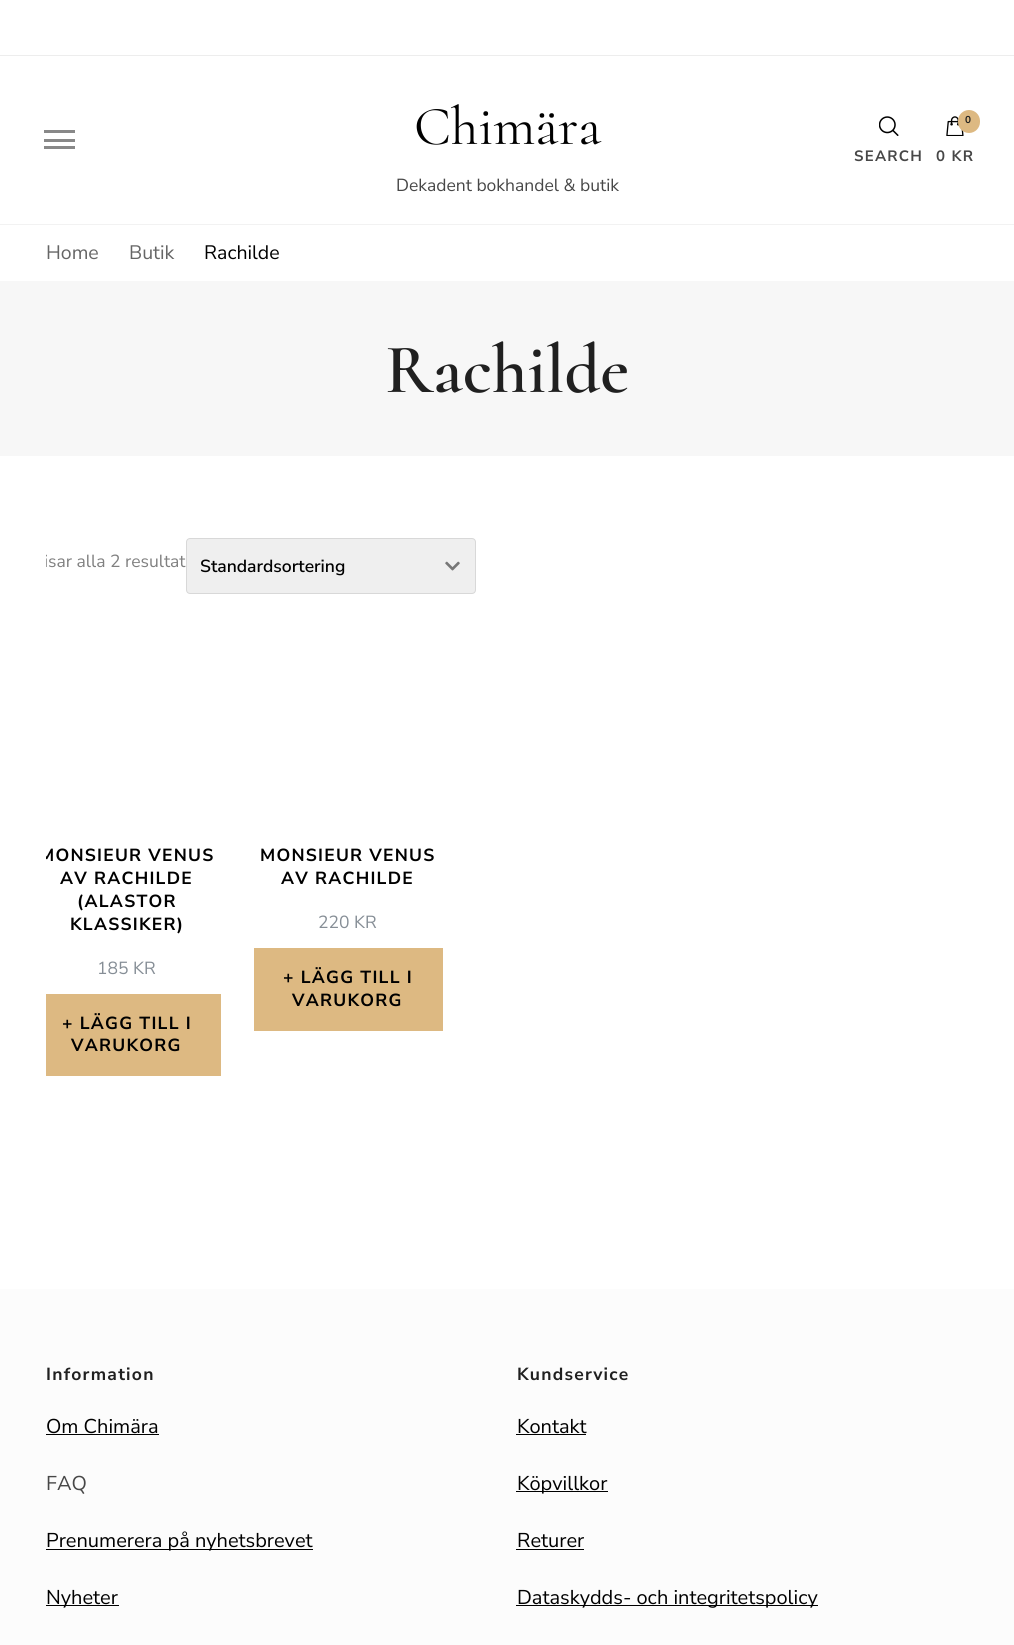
#include <cairo.h>
#include <math.h>
#include <stddef.h>

typedef struct { double x, y; const char *s; } line_t;
typedef struct { double x, y, w, h; unsigned color; } box_t;

static void ink(cairo_t *ctx, unsigned color) {
    cairo_set_source_rgb(ctx, (color >> 16) / 255.0, (color >> 8 & 255) / 255.0, (color & 255) / 255.0);
}

static void write_spaced(cairo_t *ctx, double x, double y, const char *s, double letter, double word) {
    cairo_move_to(ctx, x, y);
    while (*s) {
        char ch[5] = {0};
        int n = 0;
        do ch[n++] = *s++; while ((*s & 0xC0) == 0x80);
        cairo_show_text(ctx, ch);
        cairo_rel_move_to(ctx, letter + word * (*ch == ' '), 0);
    }
}

static void round_path(cairo_t *ctx, double x, double y, double w, double h, double r) {
    cairo_new_sub_path(ctx);
    cairo_arc(ctx, x + w - r, y + h - r, r, 0, M_PI / 2);
    cairo_arc(ctx, x + r, y + h - r, r, M_PI / 2, M_PI);
    cairo_arc(ctx, x + r, y + r, r, M_PI, 1.5 * M_PI);
    cairo_arc(ctx, x + w - r, y + r, r, 1.5 * M_PI, 2 * M_PI);
    cairo_close_path(ctx);
}

static void paste(cairo_t *ctx, const char *path, double x, double y, double w, double h) {
    cairo_surface_t *image = cairo_image_surface_create_from_png(path);
    cairo_save(ctx);
    cairo_set_source_surface(ctx, image, x, y);
    cairo_rectangle(ctx, x, y, w, h);
    cairo_fill(ctx);
    cairo_restore(ctx);
    cairo_surface_destroy(image);
}

int main(void) {
    cairo_surface_t *surface = cairo_image_surface_create(CAIRO_FORMAT_RGB24, 1014, 1645);
    cairo_t *ctx = cairo_create(surface);
    cairo_font_options_t *options = cairo_font_options_create();
    cairo_font_options_set_hint_metrics(options, CAIRO_HINT_METRICS_OFF);
    cairo_font_options_set_hint_style(options, CAIRO_HINT_STYLE_NONE);
    cairo_set_font_options(ctx, options);
    cairo_set_miter_limit(ctx, 4);
    ink(ctx, 0xFFFFFF);
    cairo_paint(ctx);
    {
        static const box_t items[] = {
            {0, 55, 1014, 1, 0xEDEDED},
            {0, 224, 1014, 1, 0xF2F2F2},
            {44, 130, 31, 3, 0x888888},
            {44, 139, 31, 3, 0x888888},
            {44, 146, 31, 3, 0x888888},
        };
        for (size_t i = 0; i < sizeof items / sizeof *items; i++) {
            ink(ctx, items[i].color);
            cairo_rectangle(ctx, items[i].x, items[i].y, items[i].w, items[i].h);
            cairo_fill(ctx);
        }
    }
    cairo_select_font_face(ctx, "Cormorant", CAIRO_FONT_SLANT_NORMAL, CAIRO_FONT_WEIGHT_NORMAL);
    cairo_set_font_size(ctx, 55);
    ink(ctx, 0x000000);
    cairo_move_to(ctx, 414, 144);
    cairo_show_text(ctx, "Chimära");
    cairo_select_font_face(ctx, "Nunito Sans", CAIRO_FONT_SLANT_NORMAL, CAIRO_FONT_WEIGHT_NORMAL);
    cairo_set_font_size(ctx, 17.5);
    ink(ctx, 0x474747);
    cairo_move_to(ctx, 396, 191);
    cairo_show_text(ctx, "Dekadent bokhandel & butik");
    paste(ctx, "media/1.png", 879, 116, 20, 20);
    cairo_select_font_face(ctx, "Nunito Sans", CAIRO_FONT_SLANT_NORMAL, CAIRO_FONT_WEIGHT_BOLD);
    cairo_set_font_size(ctx, 15);
    write_spaced(ctx, 854, 161, "SEARCH", 1.25, 0);
    paste(ctx, "media/2.png", 946, 116, 18, 20);
    ink(ctx, 0xDDB982);
    round_path(ctx, 958, 110, 22, 23, 11);
    cairo_fill(ctx);
    cairo_set_font_size(ctx, 10);
    ink(ctx, 0x202020);
    write_spaced(ctx, 965, 123, "0", 1.25, 0);
    cairo_set_font_size(ctx, 15);
    ink(ctx, 0x474747);
    write_spaced(ctx, 936, 161, "0 KR", 1.25, 0);
    cairo_select_font_face(ctx, "Nunito Sans", CAIRO_FONT_SLANT_NORMAL, CAIRO_FONT_WEIGHT_NORMAL);
    cairo_set_font_size(ctx, 19.5);
    ink(ctx, 0x666666);
    cairo_move_to(ctx, 46, 259);
    cairo_show_text(ctx, "Home");
    cairo_move_to(ctx, 129, 259);
    cairo_show_text(ctx, "Butik");
    ink(ctx, 0x000000);
    cairo_move_to(ctx, 204, 259);
    cairo_show_text(ctx, "Rachilde");
    ink(ctx, 0xF7F7F7);
    cairo_rectangle(ctx, 0, 281, 1014, 175);
    cairo_fill(ctx);
    cairo_select_font_face(ctx, "Cormorant SemiBold", CAIRO_FONT_SLANT_NORMAL, CAIRO_FONT_WEIGHT_NORMAL);
    cairo_set_font_size(ctx, 70);
    ink(ctx, 0x202020);
    cairo_move_to(ctx, 385, 392);
    cairo_show_text(ctx, "Rachilde");
    cairo_save(ctx);
    cairo_rectangle(ctx, 46, 538, 923, 626);
    cairo_clip(ctx);
    cairo_select_font_face(ctx, "Nunito Sans", CAIRO_FONT_SLANT_NORMAL, CAIRO_FONT_WEIGHT_NORMAL);
    cairo_set_font_size(ctx, 17.5);
    ink(ctx, 0x808080);
    cairo_move_to(ctx, 44, 567);
    cairo_show_text(ctx, "isar alla 2 resultat");
    cairo_restore(ctx);
    ink(ctx, 0xEFEFEF);
    round_path(ctx, 186, 538, 290, 56, 4);
    cairo_fill(ctx);
    paste(ctx, "media/3.png", 445, 561, 15, 10);
    round_path(ctx, 186.5, 538.5, 289, 55, 3.5);
    cairo_set_source_rgba(ctx, 0, 0, 0, 0.1);
    cairo_set_line_width(ctx, 1);
    cairo_stroke(ctx);
    cairo_select_font_face(ctx, "Nunito Sans SemiBold", CAIRO_FONT_SLANT_NORMAL, CAIRO_FONT_WEIGHT_NORMAL);
    cairo_set_font_size(ctx, 17.5);
    ink(ctx, 0x000000);
    cairo_move_to(ctx, 200, 572);
    cairo_show_text(ctx, "Standardsortering");
    cairo_save(ctx);
    cairo_rectangle(ctx, 46, 631, 175, 350);
    cairo_clip(ctx);
    cairo_select_font_face(ctx, "Nunito Sans", CAIRO_FONT_SLANT_NORMAL, CAIRO_FONT_WEIGHT_BOLD);
    write_spaced(ctx, 39, 861, "MONSIEUR VENUS", 1.25, 0);
    cairo_restore(ctx);
    cairo_select_font_face(ctx, "Nunito Sans", CAIRO_FONT_SLANT_NORMAL, CAIRO_FONT_WEIGHT_BOLD);
    {
        static const line_t items[] = {
            {60, 884, "AV RACHILDE"},
            {77, 907, "(ALASTOR"},
            {70, 930, "KLASSIKER)"},
        };
        for (size_t i = 0; i < sizeof items / sizeof *items; i++) {
            write_spaced(ctx, items[i].x, items[i].y, items[i].s, 1.25, 0);
        }
    }
    cairo_select_font_face(ctx, "Nunito Sans", CAIRO_FONT_SLANT_NORMAL, CAIRO_FONT_WEIGHT_NORMAL);
    ink(ctx, 0x868E96);
    cairo_move_to(ctx, 97, 974);
    cairo_show_text(ctx, "185 KR");
    ink(ctx, 0xDDB982);
    cairo_rectangle(ctx, 46, 994, 175, 82);
    cairo_fill(ctx);
    cairo_select_font_face(ctx, "Nunito Sans", CAIRO_FONT_SLANT_NORMAL, CAIRO_FONT_WEIGHT_BOLD);
    ink(ctx, 0x000000);
    {
        static const line_t items[] = {
            {62, 1029, "+ LÄGG TILL I"},
            {71, 1051, "VARUKORG"},
            {260, 861, "MONSIEUR VENUS"},
            {281, 884, "AV RACHILDE"},
        };
        for (size_t i = 0; i < sizeof items / sizeof *items; i++) {
            write_spaced(ctx, items[i].x, items[i].y, items[i].s, 1.25, 0);
        }
    }
    cairo_select_font_face(ctx, "Nunito Sans", CAIRO_FONT_SLANT_NORMAL, CAIRO_FONT_WEIGHT_NORMAL);
    ink(ctx, 0x868E96);
    cairo_move_to(ctx, 318, 928);
    cairo_show_text(ctx, "220 KR");
    ink(ctx, 0xDDB982);
    cairo_rectangle(ctx, 254, 948, 189, 83);
    cairo_fill(ctx);
    cairo_select_font_face(ctx, "Nunito Sans", CAIRO_FONT_SLANT_NORMAL, CAIRO_FONT_WEIGHT_BOLD);
    ink(ctx, 0x000000);
    write_spaced(ctx, 283, 983, "+ LÄGG TILL I", 1.25, 0);
    write_spaced(ctx, 292, 1006, "VARUKORG", 1.25, 0);
    ink(ctx, 0xFCFCFC);
    cairo_rectangle(ctx, 0, 1289, 1014, 356);
    cairo_fill(ctx);
    ink(ctx, 0x202020);
    write_spaced(ctx, 46, 1380, "Information", 1.25, 0);
    cairo_select_font_face(ctx, "Nunito Sans", CAIRO_FONT_SLANT_NORMAL, CAIRO_FONT_WEIGHT_NORMAL);
    cairo_set_font_size(ctx, 20);
    ink(ctx, 0x000000);
    cairo_move_to(ctx, 46, 1433);
    cairo_show_text(ctx, "Om Chimära");
    cairo_rectangle(ctx, 46, 1434, 113, 1);
    cairo_fill(ctx);
    ink(ctx, 0x474747);
    cairo_move_to(ctx, 46, 1490);
    cairo_show_text(ctx, "FAQ");
    ink(ctx, 0x000000);
    cairo_rectangle(ctx, 46, 1549, 267, 1);
    cairo_fill(ctx);
    cairo_move_to(ctx, 46, 1547);
    cairo_show_text(ctx, "Prenumerera på nyhetsbrevet");
    cairo_rectangle(ctx, 46, 1605, 73, 1);
    cairo_fill(ctx);
    cairo_move_to(ctx, 46, 1604);
    cairo_show_text(ctx, "Nyheter");
    cairo_select_font_face(ctx, "Nunito Sans", CAIRO_FONT_SLANT_NORMAL, CAIRO_FONT_WEIGHT_BOLD);
    cairo_set_font_size(ctx, 17.5);
    ink(ctx, 0x202020);
    write_spaced(ctx, 517, 1380, "Kundservice", 1.25, 0);
    cairo_select_font_face(ctx, "Nunito Sans", CAIRO_FONT_SLANT_NORMAL, CAIRO_FONT_WEIGHT_NORMAL);
    cairo_set_font_size(ctx, 20);
    ink(ctx, 0x000000);
    cairo_move_to(ctx, 517, 1433);
    cairo_show_text(ctx, "Kontakt");
    cairo_rectangle(ctx, 516, 1434, 70, 1);
    cairo_fill(ctx);
    cairo_rectangle(ctx, 516, 1491, 92, 1);
    cairo_fill(ctx);
    cairo_move_to(ctx, 517, 1490);
    cairo_show_text(ctx, "Köpvillkor");
    cairo_move_to(ctx, 517, 1547);
    cairo_show_text(ctx, "Returer");
    cairo_rectangle(ctx, 516, 1549, 68, 1);
    cairo_fill(ctx);
    cairo_rectangle(ctx, 516, 1605, 302, 1);
    cairo_fill(ctx);
    cairo_move_to(ctx, 517, 1604);
    cairo_show_text(ctx, "Dataskydds- och integritetspolicy");
    cairo_surface_write_to_png(surface, "image.png");
    cairo_font_options_destroy(options);
    cairo_destroy(ctx);
    cairo_surface_destroy(surface);
    return 0;
}
